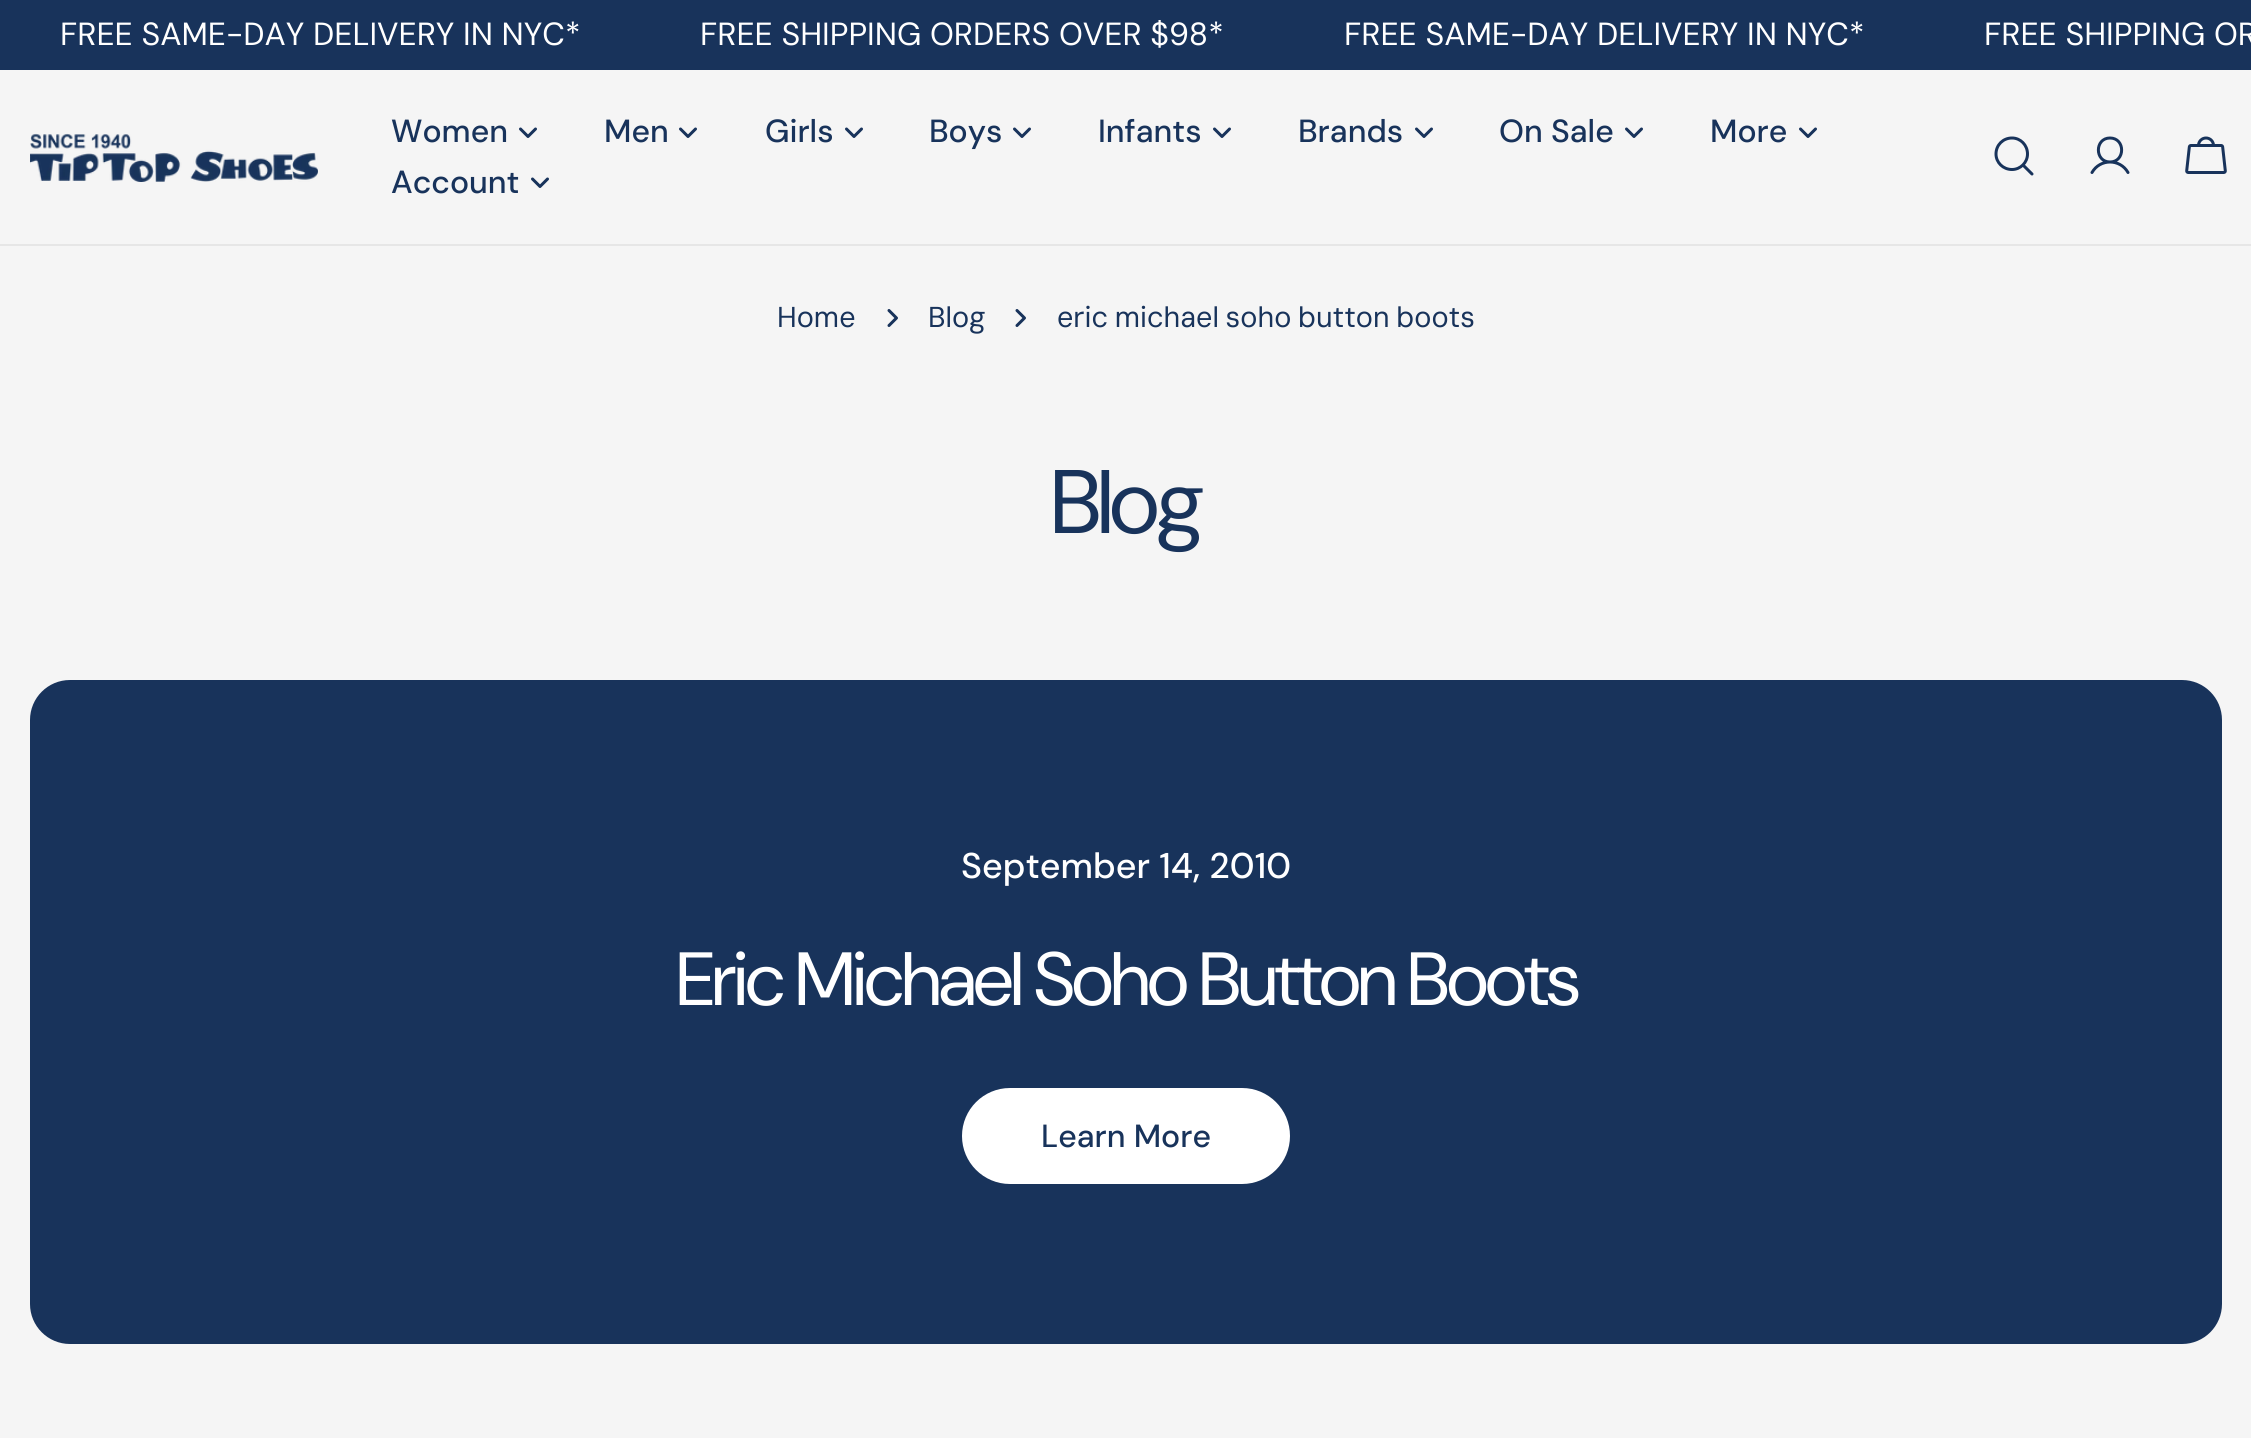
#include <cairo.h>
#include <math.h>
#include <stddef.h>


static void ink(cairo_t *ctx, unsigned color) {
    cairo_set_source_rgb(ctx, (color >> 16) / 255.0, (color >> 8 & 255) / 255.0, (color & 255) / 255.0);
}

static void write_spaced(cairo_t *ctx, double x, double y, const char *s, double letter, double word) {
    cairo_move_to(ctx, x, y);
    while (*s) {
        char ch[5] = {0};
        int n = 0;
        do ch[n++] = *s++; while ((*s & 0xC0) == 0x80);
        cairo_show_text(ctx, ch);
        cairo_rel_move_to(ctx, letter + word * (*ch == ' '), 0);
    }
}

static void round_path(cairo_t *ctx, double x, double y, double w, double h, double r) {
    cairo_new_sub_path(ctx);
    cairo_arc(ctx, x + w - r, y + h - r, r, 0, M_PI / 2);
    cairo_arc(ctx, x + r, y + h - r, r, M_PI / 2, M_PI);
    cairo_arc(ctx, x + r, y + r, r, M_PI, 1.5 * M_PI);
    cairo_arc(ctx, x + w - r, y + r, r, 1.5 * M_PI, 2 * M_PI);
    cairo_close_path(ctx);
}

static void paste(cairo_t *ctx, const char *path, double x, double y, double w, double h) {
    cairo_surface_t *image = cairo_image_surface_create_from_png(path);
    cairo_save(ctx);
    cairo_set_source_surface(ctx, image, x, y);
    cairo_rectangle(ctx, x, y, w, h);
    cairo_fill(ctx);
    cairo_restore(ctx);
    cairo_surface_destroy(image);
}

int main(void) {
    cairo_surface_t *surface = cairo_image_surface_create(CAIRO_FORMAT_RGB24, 2251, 1438);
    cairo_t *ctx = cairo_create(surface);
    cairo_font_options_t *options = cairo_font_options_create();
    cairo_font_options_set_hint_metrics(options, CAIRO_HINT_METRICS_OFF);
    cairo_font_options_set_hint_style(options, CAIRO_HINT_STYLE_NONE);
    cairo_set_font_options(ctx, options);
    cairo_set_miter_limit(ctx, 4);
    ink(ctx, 0xF5F5F5);
    cairo_paint(ctx);
    ink(ctx, 0x18335B);
    cairo_rectangle(ctx, 0, 0, 2251, 70);
    cairo_fill(ctx);
    cairo_select_font_face(ctx, "DM Sans", CAIRO_FONT_SLANT_NORMAL, CAIRO_FONT_WEIGHT_NORMAL);
    cairo_set_font_size(ctx, 32);
    ink(ctx, 0xFFFFFF);
    cairo_move_to(ctx, 60, 45);
    cairo_show_text(ctx, "FREE SAME-DAY DELIVERY IN NYC*");
    cairo_save(ctx);
    cairo_rectangle(ctx, 0, 20, 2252, 32);
    cairo_clip(ctx);
    cairo_move_to(ctx, 700, 45);
    cairo_show_text(ctx, "FREE SHIPPING ORDERS OVER $98*");
    cairo_restore(ctx);
    cairo_move_to(ctx, 1344, 45);
    cairo_show_text(ctx, "FREE SAME-DAY DELIVERY IN NYC*");
    cairo_move_to(ctx, 1984, 45);
    cairo_show_text(ctx, "FREE SHIPPING OR");
    ink(ctx, 0xE6E6E6);
    cairo_rectangle(ctx, 0, 244, 2251, 2);
    cairo_fill(ctx);
    paste(ctx, "media/1.png", 30, 133, 288, 49);
    cairo_select_font_face(ctx, "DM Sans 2 Medium", CAIRO_FONT_SLANT_NORMAL, CAIRO_FONT_WEIGHT_NORMAL);
    ink(ctx, 0x18335B);
    cairo_move_to(ctx, 391, 142);
    cairo_show_text(ctx, "Women");
    cairo_new_path(ctx);
    cairo_move_to(ctx, 535.5, 129);
    cairo_line_to(ctx, 528, 136.5);
    cairo_line_to(ctx, 520.5, 129);
    cairo_set_line_width(ctx, 3);
    cairo_set_line_cap(ctx, CAIRO_LINE_CAP_ROUND);
    cairo_set_line_join(ctx, CAIRO_LINE_JOIN_ROUND);
    cairo_stroke(ctx);
    cairo_move_to(ctx, 604, 142);
    cairo_show_text(ctx, "Men");
    cairo_new_path(ctx);
    cairo_move_to(ctx, 695.5, 129);
    cairo_line_to(ctx, 688, 136.5);
    cairo_line_to(ctx, 680.5, 129);
    cairo_stroke(ctx);
    cairo_move_to(ctx, 765, 142);
    cairo_show_text(ctx, "Girls");
    cairo_new_path(ctx);
    cairo_move_to(ctx, 861.5, 129);
    cairo_line_to(ctx, 854, 136.5);
    cairo_line_to(ctx, 846.5, 129);
    cairo_stroke(ctx);
    cairo_move_to(ctx, 929, 142);
    cairo_show_text(ctx, "Boys");
    cairo_new_path(ctx);
    cairo_move_to(ctx, 1029.5, 129);
    cairo_line_to(ctx, 1022, 136.5);
    cairo_line_to(ctx, 1014.5, 129);
    cairo_stroke(ctx);
    cairo_move_to(ctx, 1098, 142);
    cairo_show_text(ctx, "Infants");
    cairo_new_path(ctx);
    cairo_move_to(ctx, 1229.5, 129);
    cairo_line_to(ctx, 1222, 136.5);
    cairo_line_to(ctx, 1214.5, 129);
    cairo_stroke(ctx);
    cairo_move_to(ctx, 1298, 142);
    cairo_show_text(ctx, "Brands");
    cairo_new_path(ctx);
    cairo_move_to(ctx, 1431.5, 129);
    cairo_line_to(ctx, 1424, 136.5);
    cairo_line_to(ctx, 1416.5, 129);
    cairo_stroke(ctx);
    cairo_move_to(ctx, 1499, 142);
    cairo_show_text(ctx, "On Sale");
    cairo_new_path(ctx);
    cairo_move_to(ctx, 1641.5, 129);
    cairo_line_to(ctx, 1634, 136.5);
    cairo_line_to(ctx, 1626.5, 129);
    cairo_stroke(ctx);
    cairo_move_to(ctx, 1710, 142);
    cairo_show_text(ctx, "More");
    cairo_new_path(ctx);
    cairo_move_to(ctx, 1815.5, 129);
    cairo_line_to(ctx, 1808, 136.5);
    cairo_line_to(ctx, 1800.5, 129);
    cairo_stroke(ctx);
    cairo_move_to(ctx, 391, 193);
    cairo_show_text(ctx, "Account");
    cairo_new_path(ctx);
    cairo_move_to(ctx, 547.5, 179);
    cairo_line_to(ctx, 540, 186.5);
    cairo_line_to(ctx, 532.5, 179);
    cairo_stroke(ctx);
    cairo_new_path(ctx);
    cairo_move_to(ctx, 2012, 169.5);
    cairo_curve_to(ctx, 2020.5, 169.5, 2027.5, 162.5, 2027.5, 154);
    cairo_curve_to(ctx, 2027.5, 145, 2020.5, 138, 2012, 138);
    cairo_curve_to(ctx, 2003, 138, 1996, 145, 1996, 154);
    cairo_curve_to(ctx, 1996, 162.5, 2003, 169.5, 2012, 169.5);
    cairo_close_path(ctx);
    cairo_move_to(ctx, 2023, 165);
    cairo_line_to(ctx, 2032, 174);
    cairo_stroke(ctx);
    cairo_new_path(ctx);
    cairo_move_to(ctx, 2110, 162);
    cairo_curve_to(ctx, 2125.5, 162, 2125.5, 138, 2110, 138);
    cairo_curve_to(ctx, 2094.5, 138, 2094.5, 162, 2110, 162);
    cairo_close_path(ctx);
    cairo_move_to(ctx, 2092, 172.5);
    cairo_curve_to(ctx, 2100, 158.5, 2120, 158.5, 2128, 172.5);
    cairo_stroke(ctx);
    paste(ctx, "media/2.png", 2185, 136, 42, 38);
    cairo_select_font_face(ctx, "DM Sans", CAIRO_FONT_SLANT_NORMAL, CAIRO_FONT_WEIGHT_NORMAL);
    cairo_set_font_size(ctx, 28.75);
    cairo_move_to(ctx, 777, 327);
    cairo_show_text(ctx, "Home");
    cairo_new_path(ctx);
    cairo_move_to(ctx, 889, 310.5);
    cairo_line_to(ctx, 896.5, 318);
    cairo_line_to(ctx, 889, 325.5);
    cairo_stroke(ctx);
    cairo_move_to(ctx, 928, 327);
    cairo_show_text(ctx, "Blog");
    cairo_new_path(ctx);
    cairo_move_to(ctx, 1017, 310.5);
    cairo_line_to(ctx, 1024.5, 318);
    cairo_line_to(ctx, 1017, 325.5);
    cairo_stroke(ctx);
    write_spaced(ctx, 1057, 327, "eric michael soho button boots", 0, -1);
    cairo_select_font_face(ctx, "DM Sans 2", CAIRO_FONT_SLANT_NORMAL, CAIRO_FONT_WEIGHT_NORMAL);
    cairo_set_font_size(ctx, 90);
    write_spaced(ctx, 1051, 533, "Blog", -3.5, 0);
    round_path(ctx, 30, 680, 2192, 664, 40);
    cairo_fill(ctx);
    cairo_select_font_face(ctx, "DM Sans Medium", CAIRO_FONT_SLANT_NORMAL, CAIRO_FONT_WEIGHT_NORMAL);
    cairo_set_font_size(ctx, 35.75);
    ink(ctx, 0xFFFFFF);
    cairo_move_to(ctx, 961, 878);
    cairo_show_text(ctx, "September 14, 2010");
    cairo_select_font_face(ctx, "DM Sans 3", CAIRO_FONT_SLANT_NORMAL, CAIRO_FONT_WEIGHT_NORMAL);
    cairo_set_font_size(ctx, 75.25);
    write_spaced(ctx, 676, 1005, "Eric Michael Soho Button Boots", -3, 0);
    round_path(ctx, 962, 1088, 328, 96, 48);
    cairo_fill(ctx);
    cairo_select_font_face(ctx, "DM Sans 2 Medium", CAIRO_FONT_SLANT_NORMAL, CAIRO_FONT_WEIGHT_NORMAL);
    cairo_set_font_size(ctx, 32);
    ink(ctx, 0x18335B);
    cairo_move_to(ctx, 1041, 1147);
    cairo_show_text(ctx, "Learn More");
    cairo_surface_write_to_png(surface, "image.png");
    cairo_font_options_destroy(options);
    cairo_destroy(ctx);
    cairo_surface_destroy(surface);
    return 0;
}
